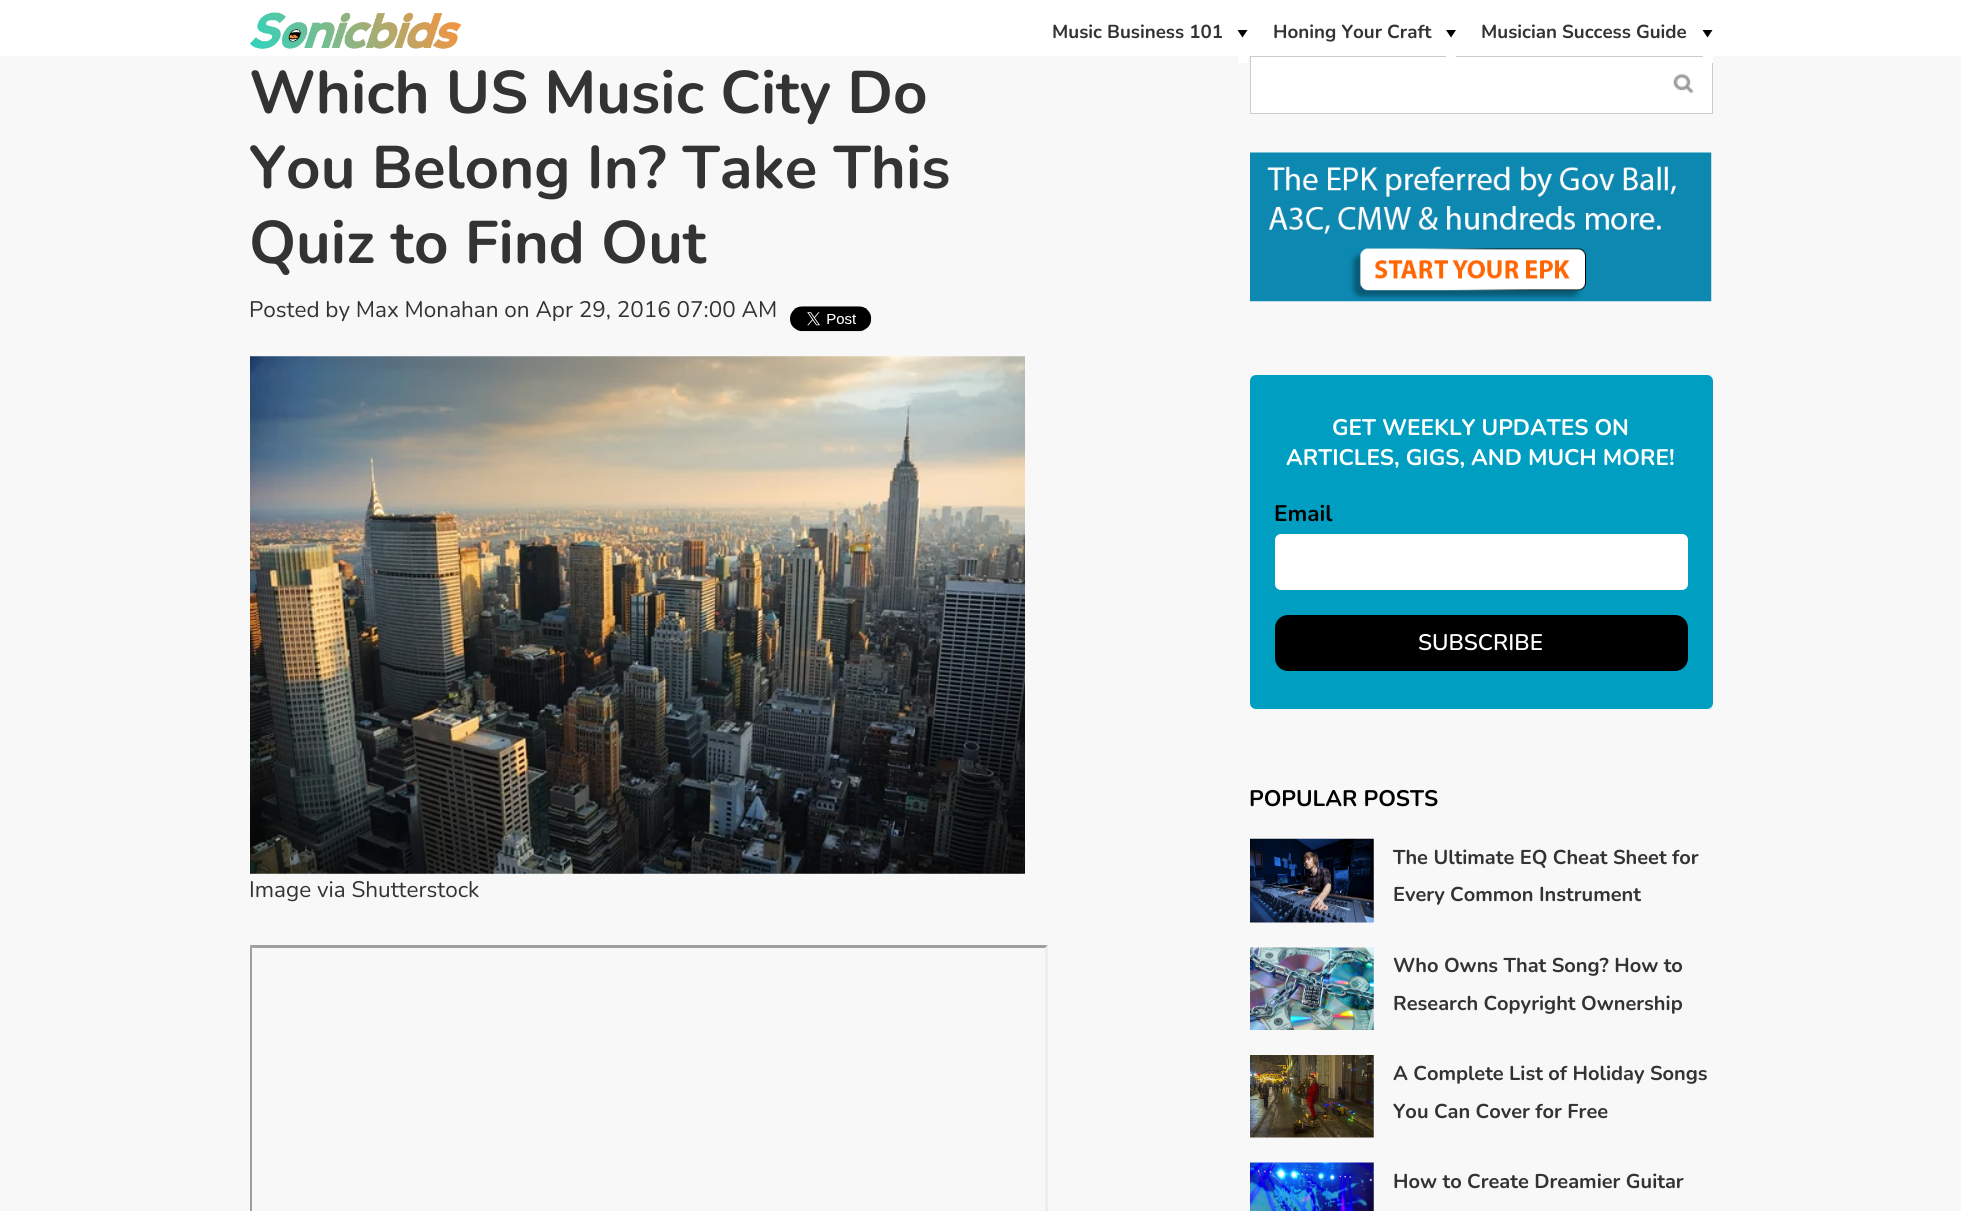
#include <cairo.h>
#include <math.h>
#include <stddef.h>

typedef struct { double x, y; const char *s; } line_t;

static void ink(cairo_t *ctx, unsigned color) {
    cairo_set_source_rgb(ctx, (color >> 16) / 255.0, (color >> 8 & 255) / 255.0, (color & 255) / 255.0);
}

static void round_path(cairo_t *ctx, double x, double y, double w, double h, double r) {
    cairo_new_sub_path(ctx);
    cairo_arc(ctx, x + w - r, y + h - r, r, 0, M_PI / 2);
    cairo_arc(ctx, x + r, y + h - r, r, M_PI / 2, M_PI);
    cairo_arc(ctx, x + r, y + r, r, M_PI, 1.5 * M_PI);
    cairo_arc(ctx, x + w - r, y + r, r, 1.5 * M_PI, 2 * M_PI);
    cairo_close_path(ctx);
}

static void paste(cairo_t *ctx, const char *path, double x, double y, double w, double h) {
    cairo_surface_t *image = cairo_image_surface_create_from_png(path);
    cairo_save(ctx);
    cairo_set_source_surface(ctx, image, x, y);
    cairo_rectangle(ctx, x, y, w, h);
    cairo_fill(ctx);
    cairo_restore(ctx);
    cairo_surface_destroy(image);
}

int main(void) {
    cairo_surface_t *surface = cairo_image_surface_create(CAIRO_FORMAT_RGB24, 1961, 1211);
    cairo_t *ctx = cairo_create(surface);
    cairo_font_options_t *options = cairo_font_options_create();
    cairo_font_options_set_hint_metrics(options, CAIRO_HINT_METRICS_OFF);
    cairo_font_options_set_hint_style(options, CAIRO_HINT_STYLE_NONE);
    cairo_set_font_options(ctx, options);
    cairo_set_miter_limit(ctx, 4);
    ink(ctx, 0xF8F8F8);
    cairo_paint(ctx);
    ink(ctx, 0xFFFFFF);
    cairo_rectangle(ctx, 0, 0, 1961, 56);
    cairo_fill(ctx);
    paste(ctx, "media/1.png", 250, 12, 212, 37);
    cairo_select_font_face(ctx, "Nunito", CAIRO_FONT_SLANT_NORMAL, CAIRO_FONT_WEIGHT_BOLD);
    cairo_set_font_size(ctx, 18.75);
    ink(ctx, 0x333333);
    cairo_move_to(ctx, 1052, 38);
    cairo_show_text(ctx, "Music Business 101");
    ink(ctx, 0xFFFFFF);
    cairo_rectangle(ctx, 1238, 56, 10, 7);
    cairo_fill(ctx);
    ink(ctx, 0x000000);
    cairo_new_path(ctx);
    cairo_move_to(ctx, 1237.5, 30);
    cairo_line_to(ctx, 1247.5, 30);
    cairo_line_to(ctx, 1242.5, 37.5);
    cairo_close_path(ctx);
    cairo_fill(ctx);
    ink(ctx, 0x333333);
    cairo_move_to(ctx, 1273, 38);
    cairo_show_text(ctx, "Honing Your Craft");
    ink(ctx, 0xFFFFFF);
    cairo_rectangle(ctx, 1250.5, 56.5, 462, 57);
    cairo_fill_preserve(ctx);
    ink(ctx, 0xCCCCCC);
    cairo_set_line_width(ctx, 1);
    cairo_stroke(ctx);
    ink(ctx, 0xFFFFFF);
    cairo_rectangle(ctx, 1446, 56, 10, 1);
    cairo_fill(ctx);
    ink(ctx, 0x000000);
    cairo_new_path(ctx);
    cairo_move_to(ctx, 1446, 30);
    cairo_line_to(ctx, 1456, 30);
    cairo_line_to(ctx, 1451, 37.5);
    cairo_close_path(ctx);
    cairo_fill(ctx);
    ink(ctx, 0x333333);
    cairo_move_to(ctx, 1481, 38);
    cairo_show_text(ctx, "Musician Success Guide");
    ink(ctx, 0xFFFFFF);
    cairo_rectangle(ctx, 1703, 56, 10, 7);
    cairo_fill(ctx);
    ink(ctx, 0x000000);
    cairo_new_path(ctx);
    cairo_move_to(ctx, 1702.5, 30);
    cairo_line_to(ctx, 1712.5, 30);
    cairo_line_to(ctx, 1707.5, 37.5);
    cairo_close_path(ctx);
    cairo_fill(ctx);
    cairo_set_font_size(ctx, 60);
    ink(ctx, 0x333333);
    {
        static const line_t items[] = {
            {249, 113, "Which US Music City Do"},
            {249, 188, "You Belong In? Take This"},
            {249, 263, "Quiz to Find Out"},
        };
        for (size_t i = 0; i < sizeof items / sizeof *items; i++) {
            cairo_move_to(ctx, items[i].x, items[i].y);
            cairo_show_text(ctx, items[i].s);
        }
    }
    cairo_select_font_face(ctx, "Nunito", CAIRO_FONT_SLANT_NORMAL, CAIRO_FONT_WEIGHT_NORMAL);
    cairo_set_font_size(ctx, 22.5);
    cairo_move_to(ctx, 249, 317);
    cairo_show_text(ctx, "Posted by Max Monahan on Apr 29, 2016 07:00 AM");
    paste(ctx, "media/2.png", 790, 306, 82, 26);
    paste(ctx, "media/3.png", 250, 356, 775, 518);
    cairo_move_to(ctx, 249, 897);
    cairo_show_text(ctx, "Image via Shutterstock");
    ink(ctx, 0x9F9F9F);
    cairo_new_path(ctx);
    cairo_move_to(ctx, 250, 945);
    cairo_line_to(ctx, 1048, 945);
    cairo_line_to(ctx, 1045, 948);
    cairo_line_to(ctx, 252, 948);
    cairo_close_path(ctx);
    cairo_fill(ctx);
    cairo_new_path(ctx);
    cairo_move_to(ctx, 250, 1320);
    cairo_line_to(ctx, 250, 945);
    cairo_line_to(ctx, 252, 948);
    cairo_line_to(ctx, 252, 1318);
    cairo_close_path(ctx);
    cairo_fill(ctx);
    ink(ctx, 0xEEEEEE);
    cairo_new_path(ctx);
    cairo_move_to(ctx, 1048, 945);
    cairo_line_to(ctx, 1048, 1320);
    cairo_line_to(ctx, 1045, 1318);
    cairo_line_to(ctx, 1045, 948);
    cairo_close_path(ctx);
    cairo_fill(ctx);
    paste(ctx, "media/4.png", 1673, 73, 21, 21);
    paste(ctx, "media/5.png", 1250, 152, 462, 150);
    ink(ctx, 0x009FC2);
    round_path(ctx, 1250, 375, 463, 334, 6);
    cairo_fill(ctx);
    cairo_select_font_face(ctx, "Nunito", CAIRO_FONT_SLANT_NORMAL, CAIRO_FONT_WEIGHT_BOLD);
    ink(ctx, 0xFFFFFF);
    cairo_move_to(ctx, 1332, 435);
    cairo_show_text(ctx, "GET WEEKLY UPDATES ON");
    cairo_move_to(ctx, 1286, 465);
    cairo_show_text(ctx, "ARTICLES, GIGS, AND MUCH MORE!");
    ink(ctx, 0x000000);
    cairo_move_to(ctx, 1274, 521);
    cairo_show_text(ctx, "Email");
    ink(ctx, 0xFFFFFF);
    round_path(ctx, 1275, 534, 413, 56, 6);
    cairo_fill(ctx);
    ink(ctx, 0x000000);
    round_path(ctx, 1275, 615, 413, 56, 13);
    cairo_fill(ctx);
    cairo_select_font_face(ctx, "Nunito SemiBold", CAIRO_FONT_SLANT_NORMAL, CAIRO_FONT_WEIGHT_NORMAL);
    ink(ctx, 0xFFFFFF);
    cairo_move_to(ctx, 1418, 650);
    cairo_show_text(ctx, "SUBSCRIBE");
    cairo_select_font_face(ctx, "Nunito", CAIRO_FONT_SLANT_NORMAL, CAIRO_FONT_WEIGHT_BOLD);
    ink(ctx, 0x000000);
    cairo_move_to(ctx, 1249, 806);
    cairo_show_text(ctx, "POPULAR POSTS");
    paste(ctx, "media/6.png", 1250, 838, 124, 85);
    cairo_set_font_size(ctx, 20);
    ink(ctx, 0x333333);
    cairo_move_to(ctx, 1393, 864);
    cairo_show_text(ctx, "The Ultimate EQ Cheat Sheet for");
    cairo_move_to(ctx, 1393, 901);
    cairo_show_text(ctx, "Every Common Instrument");
    paste(ctx, "media/7.png", 1250, 947, 124, 83);
    cairo_move_to(ctx, 1393, 972);
    cairo_show_text(ctx, "Who Owns That Song? How to");
    cairo_move_to(ctx, 1393, 1010);
    cairo_show_text(ctx, "Research Copyright Ownership");
    paste(ctx, "media/8.png", 1250, 1055, 124, 83);
    cairo_move_to(ctx, 1393, 1080);
    cairo_show_text(ctx, "A Complete List of Holiday Songs");
    cairo_move_to(ctx, 1393, 1118);
    cairo_show_text(ctx, "You Can Cover for Free");
    paste(ctx, "media/9.png", 1250, 1162, 124, 49);
    cairo_move_to(ctx, 1393, 1188);
    cairo_show_text(ctx, "How to Create Dreamier Guitar");
    cairo_surface_write_to_png(surface, "image.png");
    cairo_font_options_destroy(options);
    cairo_destroy(ctx);
    cairo_surface_destroy(surface);
    return 0;
}
